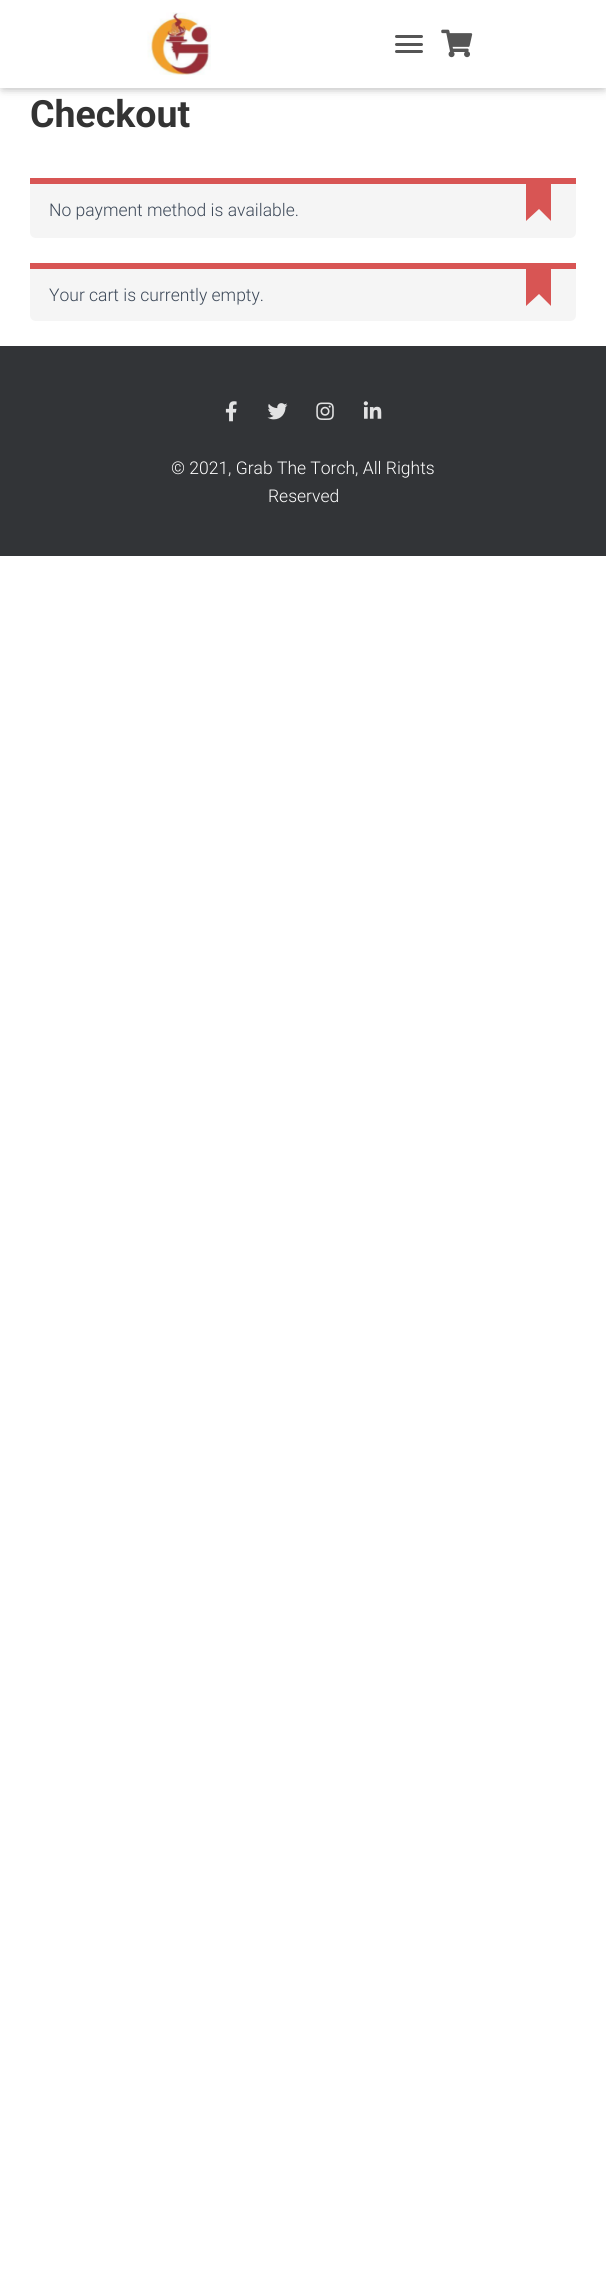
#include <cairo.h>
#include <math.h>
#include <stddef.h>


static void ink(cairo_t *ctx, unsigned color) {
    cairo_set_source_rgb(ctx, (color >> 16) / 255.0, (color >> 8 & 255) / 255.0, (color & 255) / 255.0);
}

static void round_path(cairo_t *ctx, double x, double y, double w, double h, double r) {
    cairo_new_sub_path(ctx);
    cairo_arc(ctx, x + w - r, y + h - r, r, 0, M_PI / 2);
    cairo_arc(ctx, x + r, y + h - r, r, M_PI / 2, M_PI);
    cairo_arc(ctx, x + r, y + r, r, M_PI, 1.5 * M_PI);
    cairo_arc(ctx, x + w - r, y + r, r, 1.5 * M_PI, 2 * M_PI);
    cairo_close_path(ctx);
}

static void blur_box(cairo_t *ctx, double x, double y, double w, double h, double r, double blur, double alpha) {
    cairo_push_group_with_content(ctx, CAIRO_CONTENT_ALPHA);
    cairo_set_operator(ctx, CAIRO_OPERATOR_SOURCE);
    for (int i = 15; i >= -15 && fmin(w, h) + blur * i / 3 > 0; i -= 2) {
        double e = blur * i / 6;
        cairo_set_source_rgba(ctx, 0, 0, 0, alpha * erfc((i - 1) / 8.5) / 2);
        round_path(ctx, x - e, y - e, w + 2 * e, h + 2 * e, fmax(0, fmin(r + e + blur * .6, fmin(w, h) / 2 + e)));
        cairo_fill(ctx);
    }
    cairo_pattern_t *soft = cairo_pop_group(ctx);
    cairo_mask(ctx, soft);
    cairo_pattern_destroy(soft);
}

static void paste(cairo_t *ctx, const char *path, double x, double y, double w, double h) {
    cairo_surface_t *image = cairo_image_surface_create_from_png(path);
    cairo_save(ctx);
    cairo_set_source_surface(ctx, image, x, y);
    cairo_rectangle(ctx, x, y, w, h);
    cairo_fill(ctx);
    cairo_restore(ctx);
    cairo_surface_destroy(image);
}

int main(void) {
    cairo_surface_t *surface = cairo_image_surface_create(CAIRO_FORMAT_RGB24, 606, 2296);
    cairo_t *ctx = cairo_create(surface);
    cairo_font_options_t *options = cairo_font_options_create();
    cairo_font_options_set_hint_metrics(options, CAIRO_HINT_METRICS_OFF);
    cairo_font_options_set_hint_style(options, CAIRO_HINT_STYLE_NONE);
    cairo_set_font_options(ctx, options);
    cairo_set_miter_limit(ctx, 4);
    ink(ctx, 0xFFFFFF);
    cairo_paint(ctx);
    ink(ctx, 0x000000);
    blur_box(ctx, 3, 8, 601, 82, 0, 3, 0.1);
    blur_box(ctx, 0, 1, 606, 88, 0, 6, 0.12);
    blur_box(ctx, 8, 9, 591, 72, 0, 6, 0.42);
    ink(ctx, 0xFFFFFF);
    cairo_rectangle(ctx, 0, 0, 606, 88);
    cairo_fill(ctx);
    paste(ctx, "media/1.png", 147, 12, 64, 63);
    ink(ctx, 0x555555);
    round_path(ctx, 395, 35, 28, 3, 1.5);
    cairo_fill(ctx);
    round_path(ctx, 395, 43, 28, 3, 1.5);
    cairo_fill(ctx);
    round_path(ctx, 395, 50, 28, 3, 1.5);
    cairo_fill(ctx);
    paste(ctx, "media/2.png", 441, 29, 32, 29);
    cairo_select_font_face(ctx, "Roboto", CAIRO_FONT_SLANT_NORMAL, CAIRO_FONT_WEIGHT_BOLD);
    cairo_set_font_size(ctx, 37.5);
    ink(ctx, 0x333333);
    cairo_move_to(ctx, 30, 127);
    cairo_show_text(ctx, "Checkout");
    ink(ctx, 0xF5F5F5);
    cairo_new_path(ctx);
    cairo_move_to(ctx, 30, 178);
    cairo_line_to(ctx, 576, 178);
    cairo_line_to(ctx, 576, 232);
    cairo_curve_to(ctx, 576, 235.5, 573.5, 238, 570, 238);
    cairo_line_to(ctx, 36, 238);
    cairo_curve_to(ctx, 32.5, 238, 30, 235.5, 30, 232);
    cairo_close_path(ctx);
    cairo_fill(ctx);
    ink(ctx, 0xD85554);
    cairo_rectangle(ctx, 30, 178, 546, 6);
    cairo_fill(ctx);
    cairo_select_font_face(ctx, "Roboto Light", CAIRO_FONT_SLANT_NORMAL, CAIRO_FONT_WEIGHT_NORMAL);
    cairo_set_font_size(ctx, 17.5);
    ink(ctx, 0x3C4858);
    cairo_move_to(ctx, 49, 216);
    cairo_show_text(ctx, "No payment method is available.");
    ink(ctx, 0xD85554);
    cairo_rectangle(ctx, 526, 184, 25, 37);
    cairo_fill(ctx);
    ink(ctx, 0xF5F5F5);
    cairo_new_path(ctx);
    cairo_move_to(ctx, 551, 221);
    cairo_line_to(ctx, 526, 221);
    cairo_line_to(ctx, 539, 209);
    cairo_close_path(ctx);
    cairo_fill(ctx);
    cairo_new_path(ctx);
    cairo_move_to(ctx, 30, 263);
    cairo_line_to(ctx, 576, 263);
    cairo_line_to(ctx, 576, 315);
    cairo_curve_to(ctx, 576, 318.5, 573.5, 321, 570, 321);
    cairo_line_to(ctx, 36, 321);
    cairo_curve_to(ctx, 32.5, 321, 30, 318.5, 30, 315);
    cairo_close_path(ctx);
    cairo_fill(ctx);
    ink(ctx, 0xD85554);
    cairo_rectangle(ctx, 30, 263, 546, 6);
    cairo_fill(ctx);
    ink(ctx, 0x3C4858);
    cairo_move_to(ctx, 49, 301);
    cairo_show_text(ctx, "Your cart is currently empty.");
    ink(ctx, 0xD85554);
    cairo_rectangle(ctx, 526, 269, 25, 37);
    cairo_fill(ctx);
    ink(ctx, 0xF5F5F5);
    cairo_new_path(ctx);
    cairo_move_to(ctx, 551, 306);
    cairo_line_to(ctx, 526, 306);
    cairo_line_to(ctx, 539, 294);
    cairo_close_path(ctx);
    cairo_fill(ctx);
    ink(ctx, 0x323437);
    cairo_rectangle(ctx, 0, 346, 606, 210);
    cairo_fill(ctx);
    paste(ctx, "media/3.png", 225, 401, 12, 21);
    paste(ctx, "media/4.png", 267, 403, 21, 17);
    paste(ctx, "media/5.png", 316, 402, 18, 18);
    paste(ctx, "media/6.png", 363, 401, 19, 18);
    ink(ctx, 0xFFFFFF);
    cairo_move_to(ctx, 171, 474);
    cairo_show_text(ctx, "© 2021, Grab The Torch, All Rights");
    cairo_move_to(ctx, 268, 502);
    cairo_show_text(ctx, "Reserved");
    cairo_surface_write_to_png(surface, "image.png");
    cairo_font_options_destroy(options);
    cairo_destroy(ctx);
    cairo_surface_destroy(surface);
    return 0;
}
